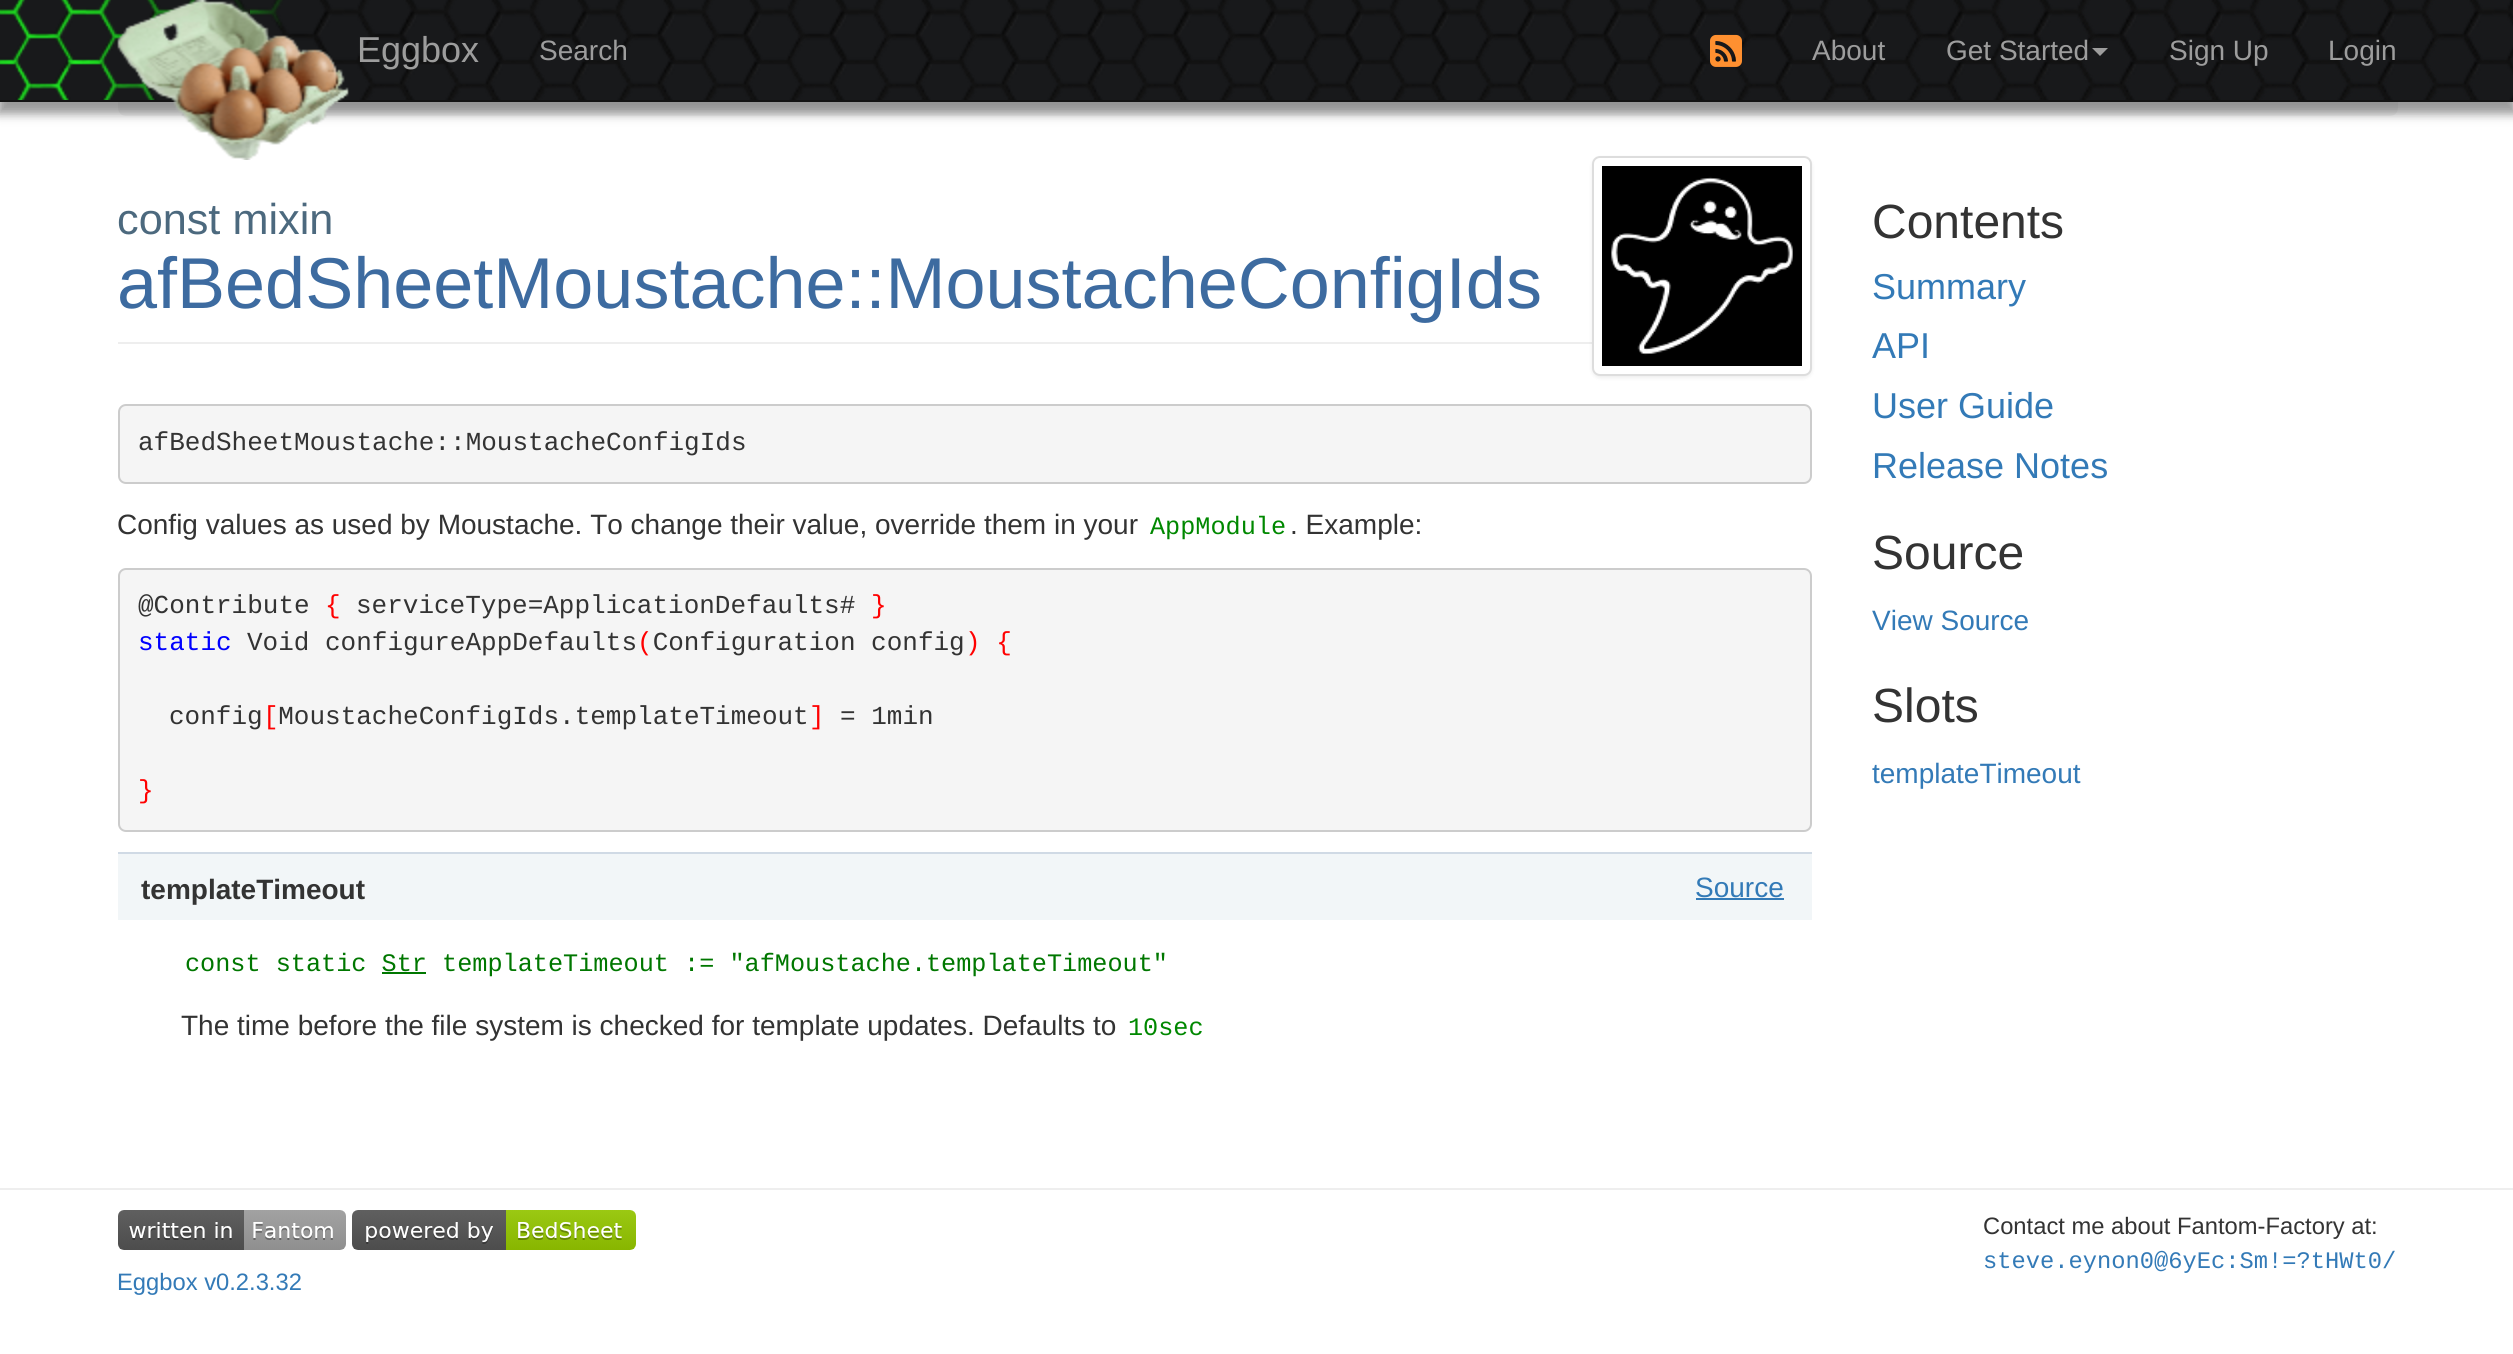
#include <cairo.h>
#include <math.h>
#include <stddef.h>

typedef struct { double x, y; const char *s; } line_t;

static void ink(cairo_t *ctx, unsigned color) {
    cairo_set_source_rgb(ctx, (color >> 16) / 255.0, (color >> 8 & 255) / 255.0, (color & 255) / 255.0);
}

static void round_path(cairo_t *ctx, double x, double y, double w, double h, double r) {
    cairo_new_sub_path(ctx);
    cairo_arc(ctx, x + w - r, y + h - r, r, 0, M_PI / 2);
    cairo_arc(ctx, x + r, y + h - r, r, M_PI / 2, M_PI);
    cairo_arc(ctx, x + r, y + r, r, M_PI, 1.5 * M_PI);
    cairo_arc(ctx, x + w - r, y + r, r, 1.5 * M_PI, 2 * M_PI);
    cairo_close_path(ctx);
}

static void blur_box(cairo_t *ctx, double x, double y, double w, double h, double r, double blur, double alpha) {
    cairo_push_group_with_content(ctx, CAIRO_CONTENT_ALPHA);
    cairo_set_operator(ctx, CAIRO_OPERATOR_SOURCE);
    for (int i = 15; i >= -15 && fmin(w, h) + blur * i / 3 > 0; i -= 2) {
        double e = blur * i / 6;
        cairo_set_source_rgba(ctx, 0, 0, 0, alpha * erfc((i - 1) / 8.5) / 2);
        round_path(ctx, x - e, y - e, w + 2 * e, h + 2 * e, fmax(0, fmin(r + e + blur * .6, fmin(w, h) / 2 + e)));
        cairo_fill(ctx);
    }
    cairo_pattern_t *soft = cairo_pop_group(ctx);
    cairo_mask(ctx, soft);
    cairo_pattern_destroy(soft);
}

static void paste(cairo_t *ctx, const char *path, double x, double y, double w, double h) {
    cairo_surface_t *image = cairo_image_surface_create_from_png(path);
    cairo_save(ctx);
    cairo_set_source_surface(ctx, image, x, y);
    cairo_rectangle(ctx, x, y, w, h);
    cairo_fill(ctx);
    cairo_restore(ctx);
    cairo_surface_destroy(image);
}

int main(void) {
    cairo_surface_t *surface = cairo_image_surface_create(CAIRO_FORMAT_RGB24, 2513, 1354);
    cairo_t *ctx = cairo_create(surface);
    cairo_font_options_t *options = cairo_font_options_create();
    cairo_font_options_set_hint_metrics(options, CAIRO_HINT_METRICS_OFF);
    cairo_font_options_set_hint_style(options, CAIRO_HINT_STYLE_NONE);
    cairo_set_font_options(ctx, options);
    cairo_set_miter_limit(ctx, 4);
    ink(ctx, 0xFFFFFF);
    cairo_paint(ctx);
    ink(ctx, 0xF5F5F5);
    round_path(ctx, 118, 44, 2280, 72, 8);
    cairo_fill(ctx);
    ink(ctx, 0x000000);
    blur_box(ctx, -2, 8, 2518, 106, 0, 5, 0.4);
    ink(ctx, 0x131313);
    cairo_rectangle(ctx, 0, 0, 2513, 102);
    cairo_fill(ctx);
    ink(ctx, 0x20EE23);
    cairo_rectangle(ctx, 0, 0, 250, 100);
    cairo_fill(ctx);
    paste(ctx, "media/1.png", 0, 0, 250, 100);
    cairo_rectangle(ctx, 250, 0, 35, 32);
    cairo_fill(ctx);
    paste(ctx, "media/2.png", 250, 0, 40, 50);
    paste(ctx, "media/3.png", 0, 0, 2513, 100);
    paste(ctx, "media/4.png", 117, 0, 232, 160);
    cairo_select_font_face(ctx, "Liberation Sans", CAIRO_FONT_SLANT_NORMAL, CAIRO_FONT_WEIGHT_NORMAL);
    cairo_set_font_size(ctx, 36);
    ink(ctx, 0x9D9D9D);
    cairo_move_to(ctx, 357, 62);
    cairo_show_text(ctx, "Eggbox");
    cairo_set_font_size(ctx, 28);
    cairo_move_to(ctx, 539, 60);
    cairo_show_text(ctx, "Search");
    paste(ctx, "media/5.png", 1710, 34, 32, 33);
    cairo_move_to(ctx, 1812, 60);
    cairo_show_text(ctx, "About");
    cairo_move_to(ctx, 1946, 60);
    cairo_show_text(ctx, "Get Started");
    cairo_new_path(ctx);
    cairo_move_to(ctx, 2092, 48);
    cairo_line_to(ctx, 2108, 48);
    cairo_line_to(ctx, 2100, 56);
    cairo_close_path(ctx);
    cairo_fill(ctx);
    cairo_move_to(ctx, 2169, 60);
    cairo_show_text(ctx, "Sign Up");
    cairo_move_to(ctx, 2328, 60);
    cairo_show_text(ctx, "Login");
    ink(ctx, 0xEEEEEE);
    cairo_rectangle(ctx, 118, 342, 1474, 2);
    cairo_fill(ctx);
    cairo_set_font_size(ctx, 43.25);
    ink(ctx, 0x4C697E);
    cairo_move_to(ctx, 117, 234);
    cairo_show_text(ctx, "const mixin");
    cairo_set_font_size(ctx, 72);
    ink(ctx, 0x3D6BA0);
    cairo_move_to(ctx, 117, 308);
    cairo_show_text(ctx, "afBedSheetMoustache::MoustacheConfigIds");
    ink(ctx, 0x000000);
    blur_box(ctx, 1592, 158, 220, 220, 8, 2, 0.07);
    ink(ctx, 0xFFFFFF);
    round_path(ctx, 1593, 157, 218, 218, 7);
    cairo_fill_preserve(ctx);
    ink(ctx, 0xDDDDDD);
    cairo_stroke(ctx);
    paste(ctx, "media/6.png", 1602, 166, 200, 200);
    ink(ctx, 0xF5F5F5);
    round_path(ctx, 119, 405, 1692, 78, 7);
    cairo_fill_preserve(ctx);
    ink(ctx, 0xCCCCCC);
    cairo_stroke(ctx);
    cairo_select_font_face(ctx, "Liberation Mono", CAIRO_FONT_SLANT_NORMAL, CAIRO_FONT_WEIGHT_NORMAL);
    cairo_set_font_size(ctx, 26);
    ink(ctx, 0x333333);
    cairo_move_to(ctx, 138, 450);
    cairo_show_text(ctx, "afBedSheetMoustache::MoustacheConfigIds");
    cairo_select_font_face(ctx, "Liberation Sans", CAIRO_FONT_SLANT_NORMAL, CAIRO_FONT_WEIGHT_NORMAL);
    cairo_set_font_size(ctx, 28);
    cairo_move_to(ctx, 117, 534);
    cairo_show_text(ctx, "Config values as used by Moustache. To change their value, override them in your");
    cairo_select_font_face(ctx, "Liberation Mono", CAIRO_FONT_SLANT_NORMAL, CAIRO_FONT_WEIGHT_NORMAL);
    cairo_set_font_size(ctx, 25.2);
    ink(ctx, 0x008800);
    cairo_move_to(ctx, 1150, 534);
    cairo_show_text(ctx, "AppModule");
    cairo_select_font_face(ctx, "Liberation Sans", CAIRO_FONT_SLANT_NORMAL, CAIRO_FONT_WEIGHT_NORMAL);
    cairo_set_font_size(ctx, 28);
    ink(ctx, 0x333333);
    cairo_move_to(ctx, 1290, 534);
    cairo_show_text(ctx, ". Example:");
    ink(ctx, 0xF5F5F5);
    round_path(ctx, 119, 569, 1692, 262, 7);
    cairo_fill_preserve(ctx);
    ink(ctx, 0xCCCCCC);
    cairo_stroke(ctx);
    cairo_select_font_face(ctx, "Liberation Mono", CAIRO_FONT_SLANT_NORMAL, CAIRO_FONT_WEIGHT_NORMAL);
    cairo_set_font_size(ctx, 26);
    ink(ctx, 0x333333);
    cairo_move_to(ctx, 138, 613);
    cairo_show_text(ctx, "@Contribute");
    ink(ctx, 0xFF0000);
    cairo_move_to(ctx, 325, 613);
    cairo_show_text(ctx, "{");
    ink(ctx, 0x333333);
    cairo_move_to(ctx, 356, 613);
    cairo_show_text(ctx, "serviceType=ApplicationDefaults#");
    ink(ctx, 0xFF0000);
    cairo_move_to(ctx, 871, 613);
    cairo_show_text(ctx, "}");
    ink(ctx, 0x0000FF);
    cairo_move_to(ctx, 138, 650);
    cairo_show_text(ctx, "static");
    ink(ctx, 0x333333);
    cairo_move_to(ctx, 247, 650);
    cairo_show_text(ctx, "Void configureAppDefaults Configuration config");
    ink(ctx, 0xFF0000);
    cairo_move_to(ctx, 637, 650);
    cairo_show_text(ctx, "(");
    cairo_move_to(ctx, 965, 650);
    cairo_show_text(ctx, ") {");
    ink(ctx, 0x333333);
    cairo_move_to(ctx, 169, 724);
    cairo_show_text(ctx, "config MoustacheConfigIds.templateTimeout");
    ink(ctx, 0xFF0000);
    cairo_move_to(ctx, 263, 724);
    cairo_show_text(ctx, "[");
    cairo_move_to(ctx, 809, 724);
    cairo_show_text(ctx, "]");
    ink(ctx, 0x333333);
    cairo_move_to(ctx, 840, 724);
    cairo_show_text(ctx, "= 1min");
    ink(ctx, 0xFF0000);
    cairo_move_to(ctx, 138, 798);
    cairo_show_text(ctx, "}");
    ink(ctx, 0xF2F6F8);
    cairo_rectangle(ctx, 118, 854, 1694, 66);
    cairo_fill(ctx);
    cairo_select_font_face(ctx, "Liberation Sans", CAIRO_FONT_SLANT_NORMAL, CAIRO_FONT_WEIGHT_NORMAL);
    cairo_set_font_size(ctx, 28);
    ink(ctx, 0x337AB7);
    cairo_move_to(ctx, 1695, 897);
    cairo_show_text(ctx, "Source");
    cairo_rectangle(ctx, 1696, 898, 88, 2);
    cairo_fill(ctx);
    cairo_select_font_face(ctx, "Liberation Mono", CAIRO_FONT_SLANT_NORMAL, CAIRO_FONT_WEIGHT_NORMAL);
    cairo_set_font_size(ctx, 25.2);
    ink(ctx, 0x007700);
    cairo_move_to(ctx, 185, 971);
    cairo_show_text(ctx, "const static Str templateTimeout := \"afMoustache.templateTimeout\"");
    cairo_rectangle(ctx, 382, 972, 44, 2);
    cairo_fill(ctx);
    cairo_select_font_face(ctx, "Liberation Sans", CAIRO_FONT_SLANT_NORMAL, CAIRO_FONT_WEIGHT_NORMAL);
    cairo_set_font_size(ctx, 28);
    ink(ctx, 0x333333);
    cairo_move_to(ctx, 181, 1035);
    cairo_show_text(ctx, "The time before the file system is checked for template updates. Defaults to");
    cairo_select_font_face(ctx, "Liberation Mono", CAIRO_FONT_SLANT_NORMAL, CAIRO_FONT_WEIGHT_NORMAL);
    cairo_set_font_size(ctx, 25.2);
    ink(ctx, 0x008800);
    cairo_move_to(ctx, 1128, 1035);
    cairo_show_text(ctx, "10sec");
    ink(ctx, 0xD0DAE5);
    cairo_rectangle(ctx, 118, 852, 1694, 2);
    cairo_fill(ctx);
    cairo_select_font_face(ctx, "Liberation Sans", CAIRO_FONT_SLANT_NORMAL, CAIRO_FONT_WEIGHT_BOLD);
    cairo_set_font_size(ctx, 28);
    ink(ctx, 0x333333);
    cairo_move_to(ctx, 141, 899);
    cairo_show_text(ctx, "templateTimeout");
    cairo_select_font_face(ctx, "Liberation Sans", CAIRO_FONT_SLANT_NORMAL, CAIRO_FONT_WEIGHT_NORMAL);
    cairo_set_font_size(ctx, 48);
    cairo_move_to(ctx, 1872, 238);
    cairo_show_text(ctx, "Contents");
    cairo_set_font_size(ctx, 36);
    ink(ctx, 0x337AB7);
    {
        static const line_t items[] = {
            {1872, 299, "Summary"},
            {1872, 358, "API"},
            {1872, 418, "User Guide"},
            {1872, 478, "Release Notes"},
        };
        for (size_t i = 0; i < sizeof items / sizeof *items; i++) {
            cairo_move_to(ctx, items[i].x, items[i].y);
            cairo_show_text(ctx, items[i].s);
        }
    }
    cairo_set_font_size(ctx, 48);
    ink(ctx, 0x333333);
    cairo_move_to(ctx, 1872, 569);
    cairo_show_text(ctx, "Source");
    cairo_set_font_size(ctx, 28);
    ink(ctx, 0x337AB7);
    cairo_move_to(ctx, 1872, 630);
    cairo_show_text(ctx, "View Source");
    cairo_set_font_size(ctx, 48);
    ink(ctx, 0x333333);
    cairo_move_to(ctx, 1872, 722);
    cairo_show_text(ctx, "Slots");
    cairo_set_font_size(ctx, 28);
    ink(ctx, 0x337AB7);
    cairo_move_to(ctx, 1872, 783);
    cairo_show_text(ctx, "templateTimeout");
    ink(ctx, 0xEEEEEE);
    cairo_rectangle(ctx, 0, 1188, 2513, 2);
    cairo_fill(ctx);
    cairo_set_font_size(ctx, 23.75);
    ink(ctx, 0x333333);
    cairo_move_to(ctx, 1983, 1234);
    cairo_show_text(ctx, "Contact me about Fantom-Factory at:");
    cairo_select_font_face(ctx, "Liberation Mono", CAIRO_FONT_SLANT_NORMAL, CAIRO_FONT_WEIGHT_NORMAL);
    ink(ctx, 0x337AB7);
    cairo_move_to(ctx, 1983, 1268);
    cairo_show_text(ctx, "steve.eynon0@6yEc:Sm!=?tHWt0/");
    paste(ctx, "media/7.png", 118, 1210, 228, 40);
    paste(ctx, "media/8.png", 352, 1210, 284, 40);
    cairo_select_font_face(ctx, "Liberation Sans", CAIRO_FONT_SLANT_NORMAL, CAIRO_FONT_WEIGHT_NORMAL);
    cairo_move_to(ctx, 117, 1290);
    cairo_show_text(ctx, "Eggbox v0.2.3.32");
    cairo_surface_write_to_png(surface, "image.png");
    cairo_font_options_destroy(options);
    cairo_destroy(ctx);
    cairo_surface_destroy(surface);
    return 0;
}
